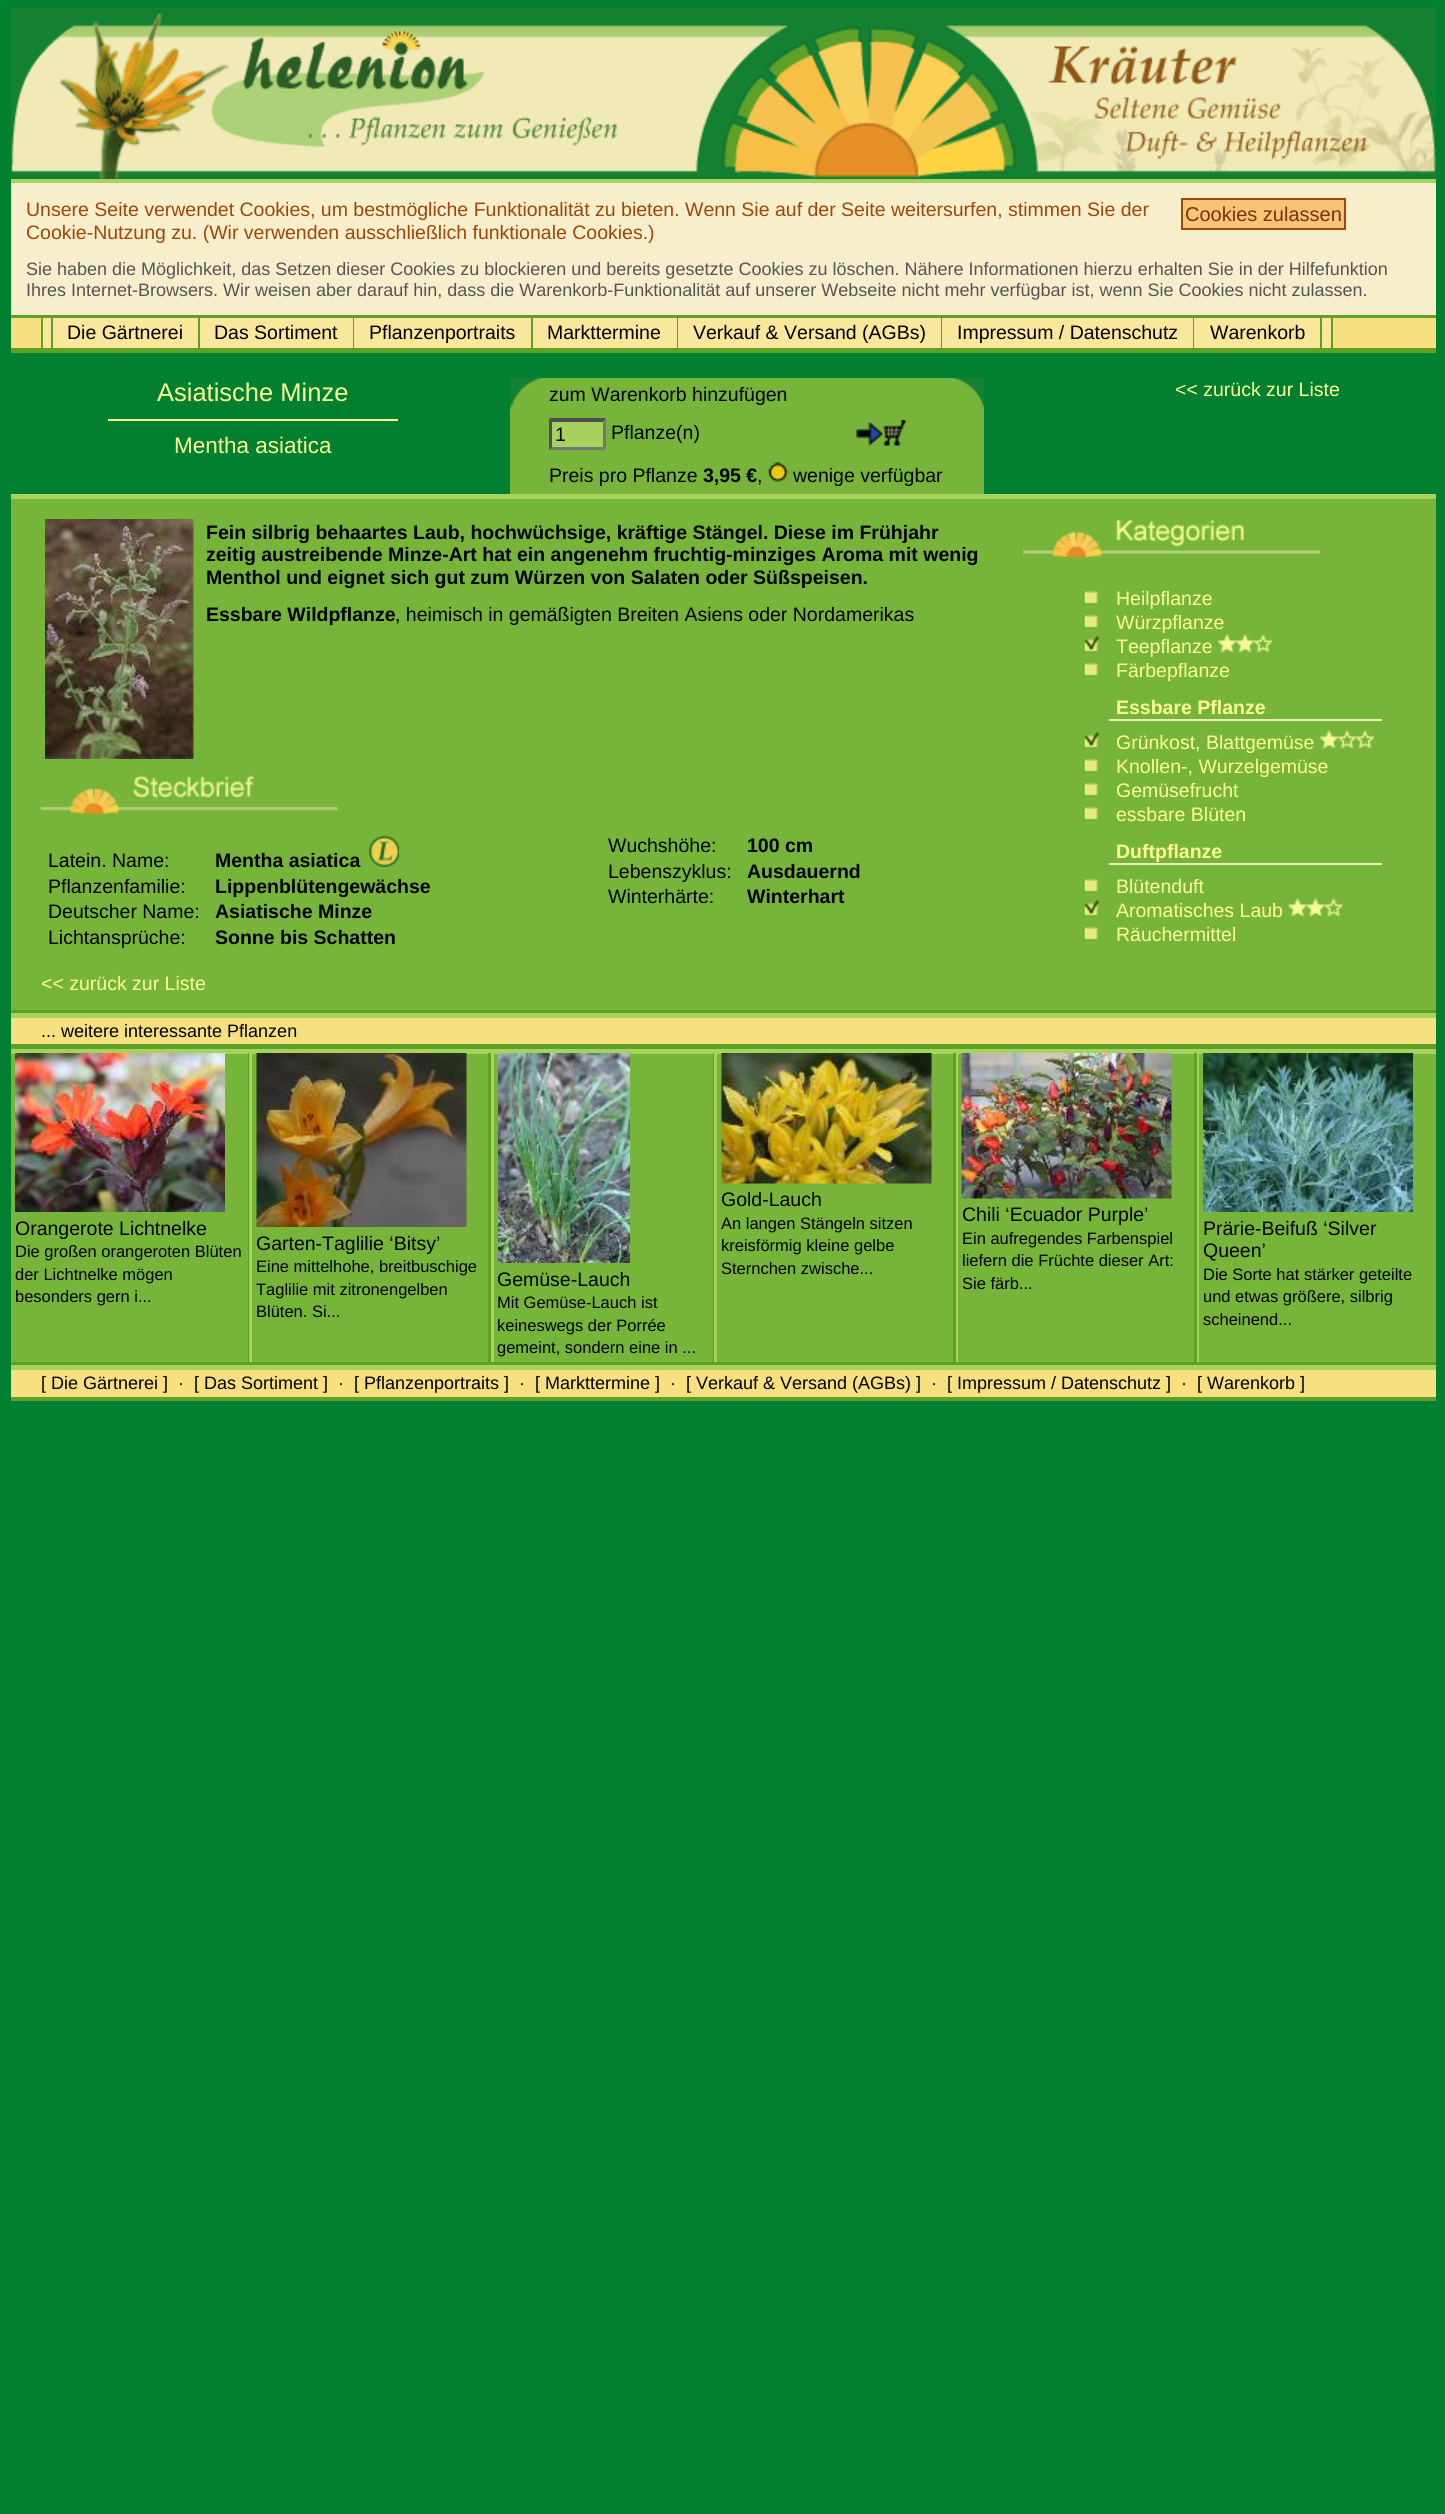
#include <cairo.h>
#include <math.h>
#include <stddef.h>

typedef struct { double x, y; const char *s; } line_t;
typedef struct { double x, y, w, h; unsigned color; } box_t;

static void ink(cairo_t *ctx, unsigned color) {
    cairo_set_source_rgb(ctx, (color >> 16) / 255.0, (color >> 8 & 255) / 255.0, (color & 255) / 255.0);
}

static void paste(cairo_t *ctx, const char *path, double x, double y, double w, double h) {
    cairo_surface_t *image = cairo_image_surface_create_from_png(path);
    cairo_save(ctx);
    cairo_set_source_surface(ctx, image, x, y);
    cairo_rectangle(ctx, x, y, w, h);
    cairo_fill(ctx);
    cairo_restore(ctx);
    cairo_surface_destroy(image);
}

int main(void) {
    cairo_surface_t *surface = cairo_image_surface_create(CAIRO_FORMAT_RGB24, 1445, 2514);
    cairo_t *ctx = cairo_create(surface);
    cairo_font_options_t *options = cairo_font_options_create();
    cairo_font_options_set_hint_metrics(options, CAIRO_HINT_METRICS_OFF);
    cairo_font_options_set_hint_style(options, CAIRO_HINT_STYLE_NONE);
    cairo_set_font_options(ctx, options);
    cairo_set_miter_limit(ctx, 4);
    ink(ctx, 0x008030);
    cairo_paint(ctx);
    paste(ctx, "media/1.png", 10, 7, 1426, 172);
    {
        static const box_t items[] = {
            {11, 318, 1425, 30, 0xF7E07F},
            {11, 179, 1425, 4, 0xA6D25D},
            {11, 348, 1425, 5, 0x5FA126},
            {11, 183, 1425, 132, 0xF7EECB},
            {11, 315, 1425, 3, 0x5FA126},
        };
        for (size_t i = 0; i < sizeof items / sizeof *items; i++) {
            ink(ctx, items[i].color);
            cairo_rectangle(ctx, items[i].x, items[i].y, items[i].w, items[i].h);
            cairo_fill(ctx);
        }
    }
    cairo_select_font_face(ctx, "Liberation Sans", CAIRO_FONT_SLANT_NORMAL, CAIRO_FONT_WEIGHT_NORMAL);
    cairo_set_font_size(ctx, 19.5);
    ink(ctx, 0x9E470B);
    cairo_move_to(ctx, 26, 216);
    cairo_show_text(ctx, "Unsere Seite verwendet Cookies, um bestmögliche Funktionalität zu bieten. Wenn Sie auf der Seite weitersurfen, stimmen Sie der");
    cairo_move_to(ctx, 26, 239);
    cairo_show_text(ctx, "Cookie-Nutzung zu. (Wir verwenden ausschließlich funktionale Cookies.)");
    ink(ctx, 0xF7C377);
    cairo_rectangle(ctx, 1182, 199, 163, 30);
    cairo_fill_preserve(ctx);
    ink(ctx, 0x9E470B);
    cairo_stroke(ctx);
    cairo_set_font_size(ctx, 20);
    ink(ctx, 0x753408);
    cairo_move_to(ctx, 1185, 221);
    cairo_show_text(ctx, "Cookies zulassen");
    cairo_set_font_size(ctx, 18);
    ink(ctx, 0x555555);
    cairo_move_to(ctx, 26, 275);
    cairo_show_text(ctx, "Sie haben die Möglichkeit, das Setzen dieser Cookies zu blockieren und bereits gesetzte Cookies zu löschen. Nähere Informationen hierzu erhalten Sie in der Hilfefunktion");
    cairo_move_to(ctx, 26, 296);
    cairo_show_text(ctx, "Ihres Internet-Browsers. Wir weisen aber darauf hin, dass die Warenkorb-Funktionalität auf unserer Webseite nicht mehr verfügbar ist, wenn Sie Cookies nicht zulassen.");
    {
        static const box_t items[] = {
            {43, 318, 8, 30, 0xF9E79B},
            {51, 318, 2, 30, 0x5FA126},
            {41, 318, 2, 30, 0x5FA126},
            {53, 318, 145, 30, 0xF9E79B},
            {198, 318, 2, 30, 0x5FA126},
        };
        for (size_t i = 0; i < sizeof items / sizeof *items; i++) {
            ink(ctx, items[i].color);
            cairo_rectangle(ctx, items[i].x, items[i].y, items[i].w, items[i].h);
            cairo_fill(ctx);
        }
    }
    cairo_set_font_size(ctx, 19.5);
    ink(ctx, 0x000000);
    cairo_move_to(ctx, 67, 339);
    cairo_show_text(ctx, "Die Gärtnerei");
    ink(ctx, 0xF9E79B);
    cairo_rectangle(ctx, 200, 318, 153, 30);
    cairo_fill(ctx);
    ink(ctx, 0x5FA126);
    cairo_rectangle(ctx, 353, 318, 1, 30);
    cairo_fill(ctx);
    ink(ctx, 0x000000);
    cairo_move_to(ctx, 214, 339);
    cairo_show_text(ctx, "Das Sortiment");
    ink(ctx, 0xF9E79B);
    cairo_rectangle(ctx, 354, 318, 177, 30);
    cairo_fill(ctx);
    ink(ctx, 0x5FA126);
    cairo_rectangle(ctx, 531, 318, 2, 30);
    cairo_fill(ctx);
    ink(ctx, 0x000000);
    cairo_move_to(ctx, 369, 339);
    cairo_show_text(ctx, "Pflanzenportraits");
    ink(ctx, 0xF9E79B);
    cairo_rectangle(ctx, 533, 318, 144, 30);
    cairo_fill(ctx);
    ink(ctx, 0x5FA126);
    cairo_rectangle(ctx, 677, 318, 1, 30);
    cairo_fill(ctx);
    ink(ctx, 0x000000);
    cairo_move_to(ctx, 547, 339);
    cairo_show_text(ctx, "Markttermine");
    ink(ctx, 0xF9E79B);
    cairo_rectangle(ctx, 678, 318, 263, 30);
    cairo_fill(ctx);
    ink(ctx, 0x5FA126);
    cairo_rectangle(ctx, 941, 318, 1, 30);
    cairo_fill(ctx);
    ink(ctx, 0x000000);
    cairo_move_to(ctx, 693, 339);
    cairo_show_text(ctx, "Verkauf & Versand (AGBs)");
    ink(ctx, 0xF9E79B);
    cairo_rectangle(ctx, 942, 318, 251, 30);
    cairo_fill(ctx);
    ink(ctx, 0x5FA126);
    cairo_rectangle(ctx, 1193, 318, 1, 30);
    cairo_fill(ctx);
    ink(ctx, 0x000000);
    cairo_move_to(ctx, 957, 339);
    cairo_show_text(ctx, "Impressum / Datenschutz");
    ink(ctx, 0xF9E79B);
    cairo_rectangle(ctx, 1194, 318, 126, 30);
    cairo_fill(ctx);
    ink(ctx, 0x5FA126);
    cairo_rectangle(ctx, 1320, 318, 2, 30);
    cairo_fill(ctx);
    ink(ctx, 0x000000);
    cairo_move_to(ctx, 1210, 339);
    cairo_show_text(ctx, "Warenkorb");
    ink(ctx, 0xF9E79B);
    cairo_rectangle(ctx, 1322, 318, 9, 30);
    cairo_fill(ctx);
    ink(ctx, 0x5FA126);
    cairo_rectangle(ctx, 1331, 318, 2, 30);
    cairo_fill(ctx);
    cairo_set_font_size(ctx, 25.5);
    ink(ctx, 0xFFFF99);
    cairo_move_to(ctx, 157, 401);
    cairo_show_text(ctx, "Asiatische Minze");
    cairo_rectangle(ctx, 108, 419, 290, 2);
    cairo_fill(ctx);
    cairo_set_font_size(ctx, 22.5);
    cairo_move_to(ctx, 174, 453);
    cairo_show_text(ctx, "Mentha asiatica");
    ink(ctx, 0x76B539);
    cairo_rectangle(ctx, 510, 378, 474, 116);
    cairo_fill(ctx);
    paste(ctx, "media/2.png", 510, 378, 32, 32);
    cairo_set_font_size(ctx, 19.5);
    ink(ctx, 0x000000);
    cairo_move_to(ctx, 549, 401);
    cairo_show_text(ctx, "zum Warenkorb hinzufügen");
    paste(ctx, "media/3.png", 954, 378, 30, 30);
    ink(ctx, 0xA6D25D);
    cairo_rectangle(ctx, 549, 419, 57, 31);
    cairo_fill(ctx);
    ink(ctx, 0x4F4F4F);
    cairo_new_path(ctx);
    cairo_move_to(ctx, 549, 418);
    cairo_line_to(ctx, 606, 418);
    cairo_line_to(ctx, 603, 422);
    cairo_line_to(ctx, 552, 422);
    cairo_close_path(ctx);
    cairo_fill(ctx);
    ink(ctx, 0x767676);
    cairo_new_path(ctx);
    cairo_move_to(ctx, 606, 418.5);
    cairo_line_to(ctx, 606, 450);
    cairo_line_to(ctx, 603, 447);
    cairo_line_to(ctx, 603, 421.5);
    cairo_close_path(ctx);
    cairo_fill(ctx);
    cairo_new_path(ctx);
    cairo_move_to(ctx, 606, 450);
    cairo_line_to(ctx, 549, 450);
    cairo_line_to(ctx, 552, 447);
    cairo_line_to(ctx, 603, 447);
    cairo_close_path(ctx);
    cairo_fill(ctx);
    ink(ctx, 0x4F4F4F);
    cairo_new_path(ctx);
    cairo_move_to(ctx, 549, 450);
    cairo_line_to(ctx, 549, 418.5);
    cairo_line_to(ctx, 552, 421.5);
    cairo_line_to(ctx, 552, 447);
    cairo_close_path(ctx);
    cairo_fill(ctx);
    ink(ctx, 0x000000);
    cairo_move_to(ctx, 555, 441);
    cairo_show_text(ctx, "1");
    cairo_move_to(ctx, 611, 439);
    cairo_show_text(ctx, "Pflanze(n)");
    paste(ctx, "media/4.png", 856, 420, 50, 26);
    cairo_move_to(ctx, 549, 482);
    cairo_show_text(ctx, "Preis pro Pflanze");
    cairo_select_font_face(ctx, "Liberation Sans", CAIRO_FONT_SLANT_NORMAL, CAIRO_FONT_WEIGHT_BOLD);
    cairo_move_to(ctx, 703, 482);
    cairo_show_text(ctx, "3,95 €");
    cairo_select_font_face(ctx, "Liberation Sans", CAIRO_FONT_SLANT_NORMAL, CAIRO_FONT_WEIGHT_NORMAL);
    cairo_move_to(ctx, 757, 482);
    cairo_show_text(ctx, ",");
    paste(ctx, "media/5.png", 768, 462, 20, 20);
    cairo_move_to(ctx, 793, 482);
    cairo_show_text(ctx, "wenige verfügbar");
    ink(ctx, 0xFFFF99);
    cairo_move_to(ctx, 1175, 396);
    cairo_show_text(ctx, "<< zurück zur Liste");
    ink(ctx, 0x76B539);
    cairo_rectangle(ctx, 11, 499, 1425, 511);
    cairo_fill(ctx);
    ink(ctx, 0xA6D25D);
    cairo_rectangle(ctx, 11, 494, 1425, 5);
    cairo_fill(ctx);
    paste(ctx, "media/6.png", 45, 519, 149, 240);
    cairo_select_font_face(ctx, "Liberation Sans", CAIRO_FONT_SLANT_NORMAL, CAIRO_FONT_WEIGHT_BOLD);
    ink(ctx, 0x000000);
    {
        static const line_t items[] = {
            {206, 539, "Fein silbrig behaartes Laub, hochwüchsige, kräftige Stängel. Diese im Frühjahr"},
            {206, 561, "zeitig austreibende Minze-Art hat ein angenehm fruchtig-minziges Aroma mit wenig"},
            {206, 584, "Menthol und eignet sich gut zum Würzen von Salaten oder Süßspeisen."},
            {206, 621, "Essbare Wildpflanze"},
        };
        for (size_t i = 0; i < sizeof items / sizeof *items; i++) {
            cairo_move_to(ctx, items[i].x, items[i].y);
            cairo_show_text(ctx, items[i].s);
        }
    }
    cairo_select_font_face(ctx, "Liberation Sans", CAIRO_FONT_SLANT_NORMAL, CAIRO_FONT_WEIGHT_NORMAL);
    cairo_move_to(ctx, 395, 621);
    cairo_show_text(ctx, ", heimisch in gemäßigten Breiten Asiens oder Nordamerikas");
    paste(ctx, "media/7.png", 40, 775, 298, 40);
    cairo_move_to(ctx, 48, 867);
    cairo_show_text(ctx, "Latein. Name:");
    cairo_select_font_face(ctx, "Liberation Sans", CAIRO_FONT_SLANT_NORMAL, CAIRO_FONT_WEIGHT_BOLD);
    cairo_move_to(ctx, 215, 867);
    cairo_show_text(ctx, "Mentha asiatica");
    paste(ctx, "media/8.png", 369, 835, 30, 32);
    cairo_select_font_face(ctx, "Liberation Sans", CAIRO_FONT_SLANT_NORMAL, CAIRO_FONT_WEIGHT_NORMAL);
    cairo_move_to(ctx, 48, 893);
    cairo_show_text(ctx, "Pflanzenfamilie:");
    cairo_select_font_face(ctx, "Liberation Sans", CAIRO_FONT_SLANT_NORMAL, CAIRO_FONT_WEIGHT_BOLD);
    cairo_move_to(ctx, 215, 893);
    cairo_show_text(ctx, "Lippenblütengewächse");
    cairo_select_font_face(ctx, "Liberation Sans", CAIRO_FONT_SLANT_NORMAL, CAIRO_FONT_WEIGHT_NORMAL);
    cairo_move_to(ctx, 48, 918);
    cairo_show_text(ctx, "Deutscher Name:");
    cairo_select_font_face(ctx, "Liberation Sans", CAIRO_FONT_SLANT_NORMAL, CAIRO_FONT_WEIGHT_BOLD);
    cairo_move_to(ctx, 215, 918);
    cairo_show_text(ctx, "Asiatische Minze");
    cairo_select_font_face(ctx, "Liberation Sans", CAIRO_FONT_SLANT_NORMAL, CAIRO_FONT_WEIGHT_NORMAL);
    cairo_move_to(ctx, 48, 944);
    cairo_show_text(ctx, "Lichtansprüche:");
    cairo_select_font_face(ctx, "Liberation Sans", CAIRO_FONT_SLANT_NORMAL, CAIRO_FONT_WEIGHT_BOLD);
    cairo_move_to(ctx, 215, 944);
    cairo_show_text(ctx, "Sonne bis Schatten");
    cairo_select_font_face(ctx, "Liberation Sans", CAIRO_FONT_SLANT_NORMAL, CAIRO_FONT_WEIGHT_NORMAL);
    cairo_move_to(ctx, 608, 852);
    cairo_show_text(ctx, "Wuchshöhe:");
    cairo_select_font_face(ctx, "Liberation Sans", CAIRO_FONT_SLANT_NORMAL, CAIRO_FONT_WEIGHT_BOLD);
    cairo_move_to(ctx, 747, 852);
    cairo_show_text(ctx, "100 cm");
    cairo_select_font_face(ctx, "Liberation Sans", CAIRO_FONT_SLANT_NORMAL, CAIRO_FONT_WEIGHT_NORMAL);
    cairo_move_to(ctx, 608, 878);
    cairo_show_text(ctx, "Lebenszyklus:");
    cairo_select_font_face(ctx, "Liberation Sans", CAIRO_FONT_SLANT_NORMAL, CAIRO_FONT_WEIGHT_BOLD);
    cairo_move_to(ctx, 747, 878);
    cairo_show_text(ctx, "Ausdauernd");
    cairo_select_font_face(ctx, "Liberation Sans", CAIRO_FONT_SLANT_NORMAL, CAIRO_FONT_WEIGHT_NORMAL);
    cairo_move_to(ctx, 608, 903);
    cairo_show_text(ctx, "Winterhärte:");
    cairo_select_font_face(ctx, "Liberation Sans", CAIRO_FONT_SLANT_NORMAL, CAIRO_FONT_WEIGHT_BOLD);
    cairo_move_to(ctx, 747, 903);
    cairo_show_text(ctx, "Winterhart");
    cairo_select_font_face(ctx, "Liberation Sans", CAIRO_FONT_SLANT_NORMAL, CAIRO_FONT_WEIGHT_NORMAL);
    ink(ctx, 0xFFFF99);
    cairo_move_to(ctx, 41, 990);
    cairo_show_text(ctx, "<< zurück zur Liste");
    paste(ctx, "media/9.png", 1023, 520, 297, 39);
    paste(ctx, "media/10.png", 1083, 590, 16, 15);
    cairo_move_to(ctx, 1116, 605);
    cairo_show_text(ctx, "Heilpflanze");
    paste(ctx, "media/10.png", 1083, 614, 16, 15);
    cairo_move_to(ctx, 1116, 629);
    cairo_show_text(ctx, "Würzpflanze");
    paste(ctx, "media/11.png", 1083, 636, 17, 17);
    cairo_move_to(ctx, 1116, 653);
    cairo_show_text(ctx, "Teepflanze");
    paste(ctx, "media/12.png", 1218, 634, 18, 19);
    paste(ctx, "media/12.png", 1236, 634, 18, 19);
    paste(ctx, "media/13.png", 1254, 634, 18, 19);
    paste(ctx, "media/10.png", 1083, 662, 16, 15);
    cairo_move_to(ctx, 1116, 677);
    cairo_show_text(ctx, "Färbepflanze");
    ink(ctx, 0xF3EBB7);
    cairo_rectangle(ctx, 1109, 719, 273, 2);
    cairo_fill(ctx);
    cairo_select_font_face(ctx, "Liberation Sans", CAIRO_FONT_SLANT_NORMAL, CAIRO_FONT_WEIGHT_BOLD);
    ink(ctx, 0xFFFF99);
    cairo_move_to(ctx, 1116, 714);
    cairo_show_text(ctx, "Essbare Pflanze");
    paste(ctx, "media/11.png", 1083, 732, 17, 17);
    cairo_select_font_face(ctx, "Liberation Sans", CAIRO_FONT_SLANT_NORMAL, CAIRO_FONT_WEIGHT_NORMAL);
    cairo_move_to(ctx, 1116, 749);
    cairo_show_text(ctx, "Grünkost, Blattgemüse");
    paste(ctx, "media/12.png", 1320, 730, 18, 19);
    paste(ctx, "media/13.png", 1338, 730, 18, 19);
    paste(ctx, "media/13.png", 1356, 730, 18, 19);
    paste(ctx, "media/10.png", 1083, 758, 16, 15);
    cairo_move_to(ctx, 1116, 773);
    cairo_show_text(ctx, "Knollen-, Wurzelgemüse");
    paste(ctx, "media/10.png", 1083, 782, 16, 15);
    cairo_move_to(ctx, 1116, 797);
    cairo_show_text(ctx, "Gemüsefrucht");
    paste(ctx, "media/10.png", 1083, 806, 16, 15);
    cairo_move_to(ctx, 1116, 821);
    cairo_show_text(ctx, "essbare Blüten");
    ink(ctx, 0xF3EBB7);
    cairo_rectangle(ctx, 1109, 863, 273, 2);
    cairo_fill(ctx);
    cairo_select_font_face(ctx, "Liberation Sans", CAIRO_FONT_SLANT_NORMAL, CAIRO_FONT_WEIGHT_BOLD);
    ink(ctx, 0xFFFF99);
    cairo_move_to(ctx, 1116, 858);
    cairo_show_text(ctx, "Duftpflanze");
    paste(ctx, "media/10.png", 1083, 878, 16, 15);
    cairo_select_font_face(ctx, "Liberation Sans", CAIRO_FONT_SLANT_NORMAL, CAIRO_FONT_WEIGHT_NORMAL);
    cairo_move_to(ctx, 1116, 893);
    cairo_show_text(ctx, "Blütenduft");
    paste(ctx, "media/11.png", 1083, 900, 17, 17);
    cairo_move_to(ctx, 1116, 917);
    cairo_show_text(ctx, "Aromatisches Laub");
    paste(ctx, "media/14.png", 1288, 898, 19, 19);
    paste(ctx, "media/15.png", 1306, 898, 19, 19);
    paste(ctx, "media/16.png", 1324, 898, 19, 19);
    paste(ctx, "media/10.png", 1083, 926, 16, 15);
    cairo_move_to(ctx, 1116, 941);
    cairo_show_text(ctx, "Räuchermittel");
    {
        static const box_t items[] = {
            {11, 1010, 1425, 3, 0x5FA126},
            {11, 1018, 1425, 26, 0xF7E07F},
            {11, 1013, 1425, 5, 0xA6D25D},
            {11, 1044, 1425, 5, 0x5FA126},
        };
        for (size_t i = 0; i < sizeof items / sizeof *items; i++) {
            ink(ctx, items[i].color);
            cairo_rectangle(ctx, items[i].x, items[i].y, items[i].w, items[i].h);
            cairo_fill(ctx);
        }
    }
    cairo_set_font_size(ctx, 18);
    ink(ctx, 0x000000);
    cairo_move_to(ctx, 41, 1037);
    cairo_show_text(ctx, "... weitere interessante Pflanzen");
    ink(ctx, 0x76B539);
    cairo_rectangle(ctx, 11, 1054, 1425, 308);
    cairo_fill(ctx);
    ink(ctx, 0xA6D25D);
    cairo_rectangle(ctx, 11, 1049, 1425, 5);
    cairo_fill(ctx);
    paste(ctx, "media/17.png", 15, 1053, 210, 159);
    cairo_set_font_size(ctx, 19.5);
    ink(ctx, 0x000000);
    cairo_move_to(ctx, 15, 1235);
    cairo_show_text(ctx, "Orangerote Lichtnelke");
    cairo_set_font_size(ctx, 16.5);
    {
        static const line_t items[] = {
            {15, 1257, "Die großen orangeroten Blüten"},
            {15, 1280, "der Lichtnelke mögen"},
            {15, 1302, "besonders gern i..."},
        };
        for (size_t i = 0; i < sizeof items / sizeof *items; i++) {
            cairo_move_to(ctx, items[i].x, items[i].y);
            cairo_show_text(ctx, items[i].s);
        }
    }
    ink(ctx, 0x5FA126);
    cairo_rectangle(ctx, 248, 1053, 1, 309);
    cairo_fill(ctx);
    ink(ctx, 0xA6D25D);
    cairo_rectangle(ctx, 249, 1053, 3, 309);
    cairo_fill(ctx);
    paste(ctx, "media/18.png", 256, 1053, 211, 174);
    cairo_set_font_size(ctx, 19.5);
    ink(ctx, 0x000000);
    cairo_move_to(ctx, 256, 1250);
    cairo_show_text(ctx, "Garten-Taglilie ‘Bitsy’");
    cairo_set_font_size(ctx, 16.5);
    {
        static const line_t items[] = {
            {256, 1272, "Eine mittelhohe, breitbuschige"},
            {256, 1295, "Taglilie mit zitronengelben"},
            {256, 1317, "Blüten. Si..."},
        };
        for (size_t i = 0; i < sizeof items / sizeof *items; i++) {
            cairo_move_to(ctx, items[i].x, items[i].y);
            cairo_show_text(ctx, items[i].s);
        }
    }
    ink(ctx, 0x5FA126);
    cairo_rectangle(ctx, 488, 1053, 3, 309);
    cairo_fill(ctx);
    ink(ctx, 0xA6D25D);
    cairo_rectangle(ctx, 491, 1053, 3, 309);
    cairo_fill(ctx);
    paste(ctx, "media/19.png", 498, 1053, 132, 210);
    cairo_set_font_size(ctx, 19.5);
    ink(ctx, 0x000000);
    cairo_move_to(ctx, 497, 1286);
    cairo_show_text(ctx, "Gemüse-Lauch");
    cairo_set_font_size(ctx, 16.5);
    {
        static const line_t items[] = {
            {497, 1308, "Mit Gemüse-Lauch ist"},
            {497, 1331, "keineswegs der Porrée"},
            {497, 1353, "gemeint, sondern eine in ..."},
        };
        for (size_t i = 0; i < sizeof items / sizeof *items; i++) {
            cairo_move_to(ctx, items[i].x, items[i].y);
            cairo_show_text(ctx, items[i].s);
        }
    }
    ink(ctx, 0x5FA126);
    cairo_rectangle(ctx, 713, 1053, 1, 309);
    cairo_fill(ctx);
    ink(ctx, 0xA6D25D);
    cairo_rectangle(ctx, 714, 1053, 3, 309);
    cairo_fill(ctx);
    paste(ctx, "media/20.png", 721, 1053, 211, 131);
    cairo_set_font_size(ctx, 19.5);
    ink(ctx, 0x000000);
    cairo_move_to(ctx, 721, 1206);
    cairo_show_text(ctx, "Gold-Lauch");
    cairo_set_font_size(ctx, 16.5);
    {
        static const line_t items[] = {
            {721, 1229, "An langen Stängeln sitzen"},
            {721, 1251, "kreisförmig kleine gelbe"},
            {721, 1274, "Sternchen zwische..."},
        };
        for (size_t i = 0; i < sizeof items / sizeof *items; i++) {
            cairo_move_to(ctx, items[i].x, items[i].y);
            cairo_show_text(ctx, items[i].s);
        }
    }
    ink(ctx, 0x5FA126);
    cairo_rectangle(ctx, 953, 1053, 3, 309);
    cairo_fill(ctx);
    ink(ctx, 0xA6D25D);
    cairo_rectangle(ctx, 956, 1053, 2, 309);
    cairo_fill(ctx);
    paste(ctx, "media/21.png", 961, 1053, 211, 146);
    cairo_set_font_size(ctx, 19.5);
    ink(ctx, 0x000000);
    cairo_move_to(ctx, 962, 1221);
    cairo_show_text(ctx, "Chili ‘Ecuador Purple’");
    cairo_set_font_size(ctx, 16.5);
    {
        static const line_t items[] = {
            {962, 1244, "Ein aufregendes Farbenspiel"},
            {962, 1266, "liefern die Früchte dieser Art:"},
            {962, 1289, "Sie färb..."},
        };
        for (size_t i = 0; i < sizeof items / sizeof *items; i++) {
            cairo_move_to(ctx, items[i].x, items[i].y);
            cairo_show_text(ctx, items[i].s);
        }
    }
    ink(ctx, 0x5FA126);
    cairo_rectangle(ctx, 1194, 1053, 3, 309);
    cairo_fill(ctx);
    ink(ctx, 0xA6D25D);
    cairo_rectangle(ctx, 1197, 1053, 2, 309);
    cairo_fill(ctx);
    paste(ctx, "media/22.png", 1203, 1053, 210, 159);
    cairo_set_font_size(ctx, 19.5);
    ink(ctx, 0x000000);
    cairo_move_to(ctx, 1203, 1235);
    cairo_show_text(ctx, "Prärie-Beifuß ‘Silver");
    cairo_move_to(ctx, 1203, 1257);
    cairo_show_text(ctx, "Queen’");
    cairo_set_font_size(ctx, 16.5);
    {
        static const line_t items[] = {
            {1203, 1280, "Die Sorte hat stärker geteilte"},
            {1203, 1302, "und etwas größere, silbrig"},
            {1203, 1325, "scheinend..."},
        };
        for (size_t i = 0; i < sizeof items / sizeof *items; i++) {
            cairo_move_to(ctx, items[i].x, items[i].y);
            cairo_show_text(ctx, items[i].s);
        }
    }
    {
        static const box_t items[] = {
            {11, 1362, 1425, 3, 0x5FA126},
            {11, 1370, 1425, 27, 0xF7E07F},
            {11, 1365, 1425, 5, 0xA6D25D},
            {11, 1397, 1425, 4, 0x5FA126},
        };
        for (size_t i = 0; i < sizeof items / sizeof *items; i++) {
            ink(ctx, items[i].color);
            cairo_rectangle(ctx, items[i].x, items[i].y, items[i].w, items[i].h);
            cairo_fill(ctx);
        }
    }
    cairo_set_font_size(ctx, 18);
    ink(ctx, 0x000000);
    {
        static const line_t items[] = {
            {41, 1389, "[ Die Gärtnerei ]"},
            {178, 1389, "·"},
            {194, 1389, "[ Das Sortiment ]"},
            {338, 1389, "·"},
            {354, 1389, "[ Pflanzenportraits ]"},
            {519, 1389, "·"},
            {535, 1389, "[ Markttermine ]"},
            {670, 1389, "·"},
            {686, 1389, "[ Verkauf & Versand (AGBs) ]"},
            {931, 1389, "·"},
            {947, 1389, "[ Impressum / Datenschutz ]"},
            {1181, 1389, "·"},
            {1197, 1389, "[ Warenkorb ]"},
        };
        for (size_t i = 0; i < sizeof items / sizeof *items; i++) {
            cairo_move_to(ctx, items[i].x, items[i].y);
            cairo_show_text(ctx, items[i].s);
        }
    }
    cairo_surface_write_to_png(surface, "image.png");
    cairo_font_options_destroy(options);
    cairo_destroy(ctx);
    cairo_surface_destroy(surface);
    return 0;
}
